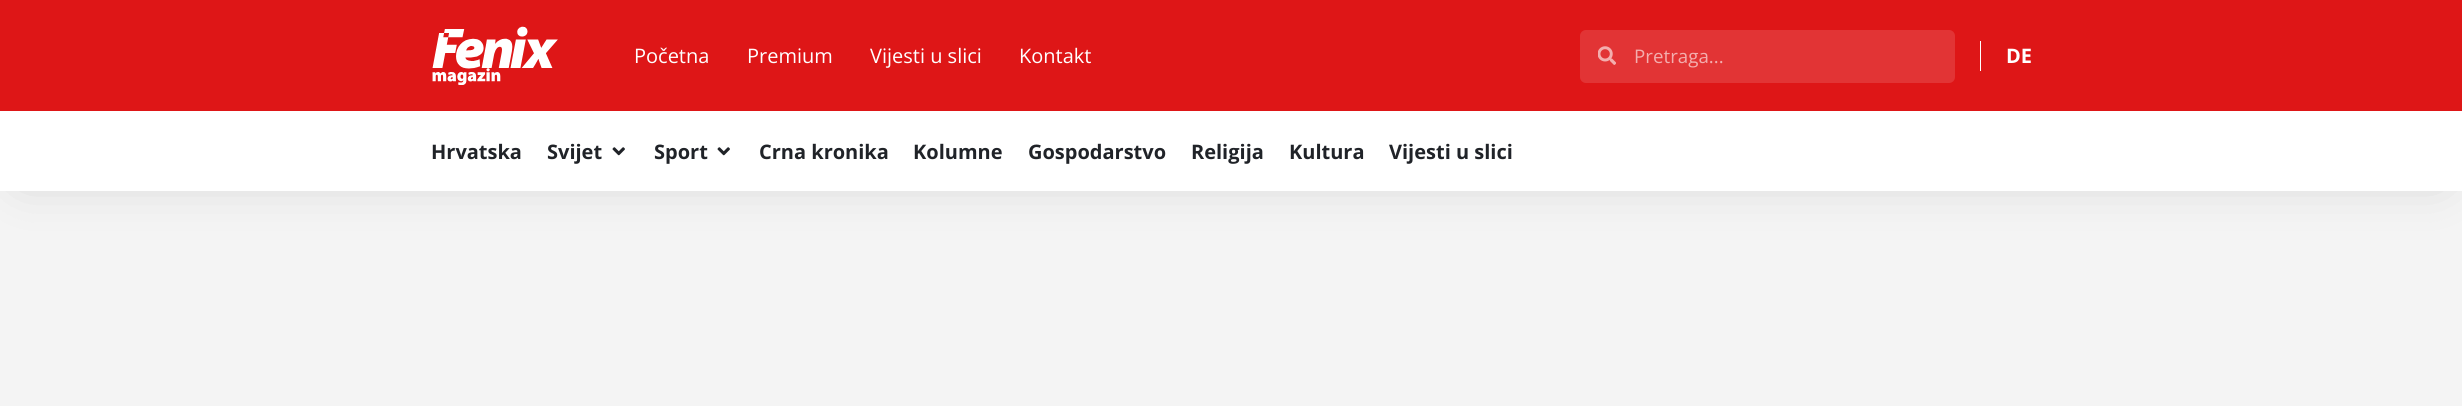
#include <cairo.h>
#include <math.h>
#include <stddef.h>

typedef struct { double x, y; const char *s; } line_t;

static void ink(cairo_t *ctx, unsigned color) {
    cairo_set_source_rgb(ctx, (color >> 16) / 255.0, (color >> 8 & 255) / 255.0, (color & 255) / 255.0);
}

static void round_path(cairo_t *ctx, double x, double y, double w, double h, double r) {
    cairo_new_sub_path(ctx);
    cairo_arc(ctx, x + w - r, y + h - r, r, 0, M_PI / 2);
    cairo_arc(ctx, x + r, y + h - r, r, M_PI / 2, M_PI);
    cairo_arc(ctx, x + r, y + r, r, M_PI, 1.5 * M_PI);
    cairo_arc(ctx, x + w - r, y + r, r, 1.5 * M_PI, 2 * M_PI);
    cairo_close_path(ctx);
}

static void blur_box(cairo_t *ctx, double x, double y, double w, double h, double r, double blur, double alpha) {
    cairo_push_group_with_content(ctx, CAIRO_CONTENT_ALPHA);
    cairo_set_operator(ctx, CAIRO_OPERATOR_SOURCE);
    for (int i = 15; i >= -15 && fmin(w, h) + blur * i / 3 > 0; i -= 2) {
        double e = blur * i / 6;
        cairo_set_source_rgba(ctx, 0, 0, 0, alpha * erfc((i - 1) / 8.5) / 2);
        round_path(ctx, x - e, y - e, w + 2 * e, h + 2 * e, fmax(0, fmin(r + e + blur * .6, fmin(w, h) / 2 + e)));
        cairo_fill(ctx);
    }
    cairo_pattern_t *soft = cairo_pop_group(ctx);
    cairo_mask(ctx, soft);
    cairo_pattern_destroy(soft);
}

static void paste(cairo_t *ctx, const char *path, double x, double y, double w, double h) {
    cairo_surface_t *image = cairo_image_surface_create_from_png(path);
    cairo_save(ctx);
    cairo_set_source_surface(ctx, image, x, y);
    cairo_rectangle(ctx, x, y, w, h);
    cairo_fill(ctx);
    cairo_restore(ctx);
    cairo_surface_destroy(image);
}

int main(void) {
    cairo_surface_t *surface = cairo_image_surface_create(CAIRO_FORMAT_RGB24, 2462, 406);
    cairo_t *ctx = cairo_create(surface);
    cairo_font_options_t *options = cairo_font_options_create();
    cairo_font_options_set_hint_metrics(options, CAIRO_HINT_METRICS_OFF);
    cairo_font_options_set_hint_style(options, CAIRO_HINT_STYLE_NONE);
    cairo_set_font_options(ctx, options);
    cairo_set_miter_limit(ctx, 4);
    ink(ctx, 0xF4F4F4);
    cairo_paint(ctx);
    ink(ctx, 0x000000);
    blur_box(ctx, 23, 140, 2417, 35, 0, 26, 0.19);
    ink(ctx, 0xDE1617);
    cairo_rectangle(ctx, 0, 0, 2462, 111);
    cairo_fill(ctx);
    paste(ctx, "media/1.png", 432, 26, 126, 59);
    cairo_select_font_face(ctx, "Open Sans", CAIRO_FONT_SLANT_NORMAL, CAIRO_FONT_WEIGHT_NORMAL);
    cairo_set_font_size(ctx, 20);
    ink(ctx, 0xFFFFFF);
    {
        static const line_t items[] = {
            {634, 63, "Početna"},
            {747, 63, "Premium"},
            {870, 63, "Vijesti u slici"},
            {1019, 63, "Kontakt"},
        };
        for (size_t i = 0; i < sizeof items / sizeof *items; i++) {
            cairo_move_to(ctx, items[i].x, items[i].y);
            cairo_show_text(ctx, items[i].s);
        }
    }
    ink(ctx, 0xE23435);
    round_path(ctx, 1580, 30, 375, 53, 6);
    cairo_fill(ctx);
    paste(ctx, "media/2.png", 1598, 46, 18, 19);
    cairo_set_font_size(ctx, 18.75);
    ink(ctx, 0xF3AEAE);
    cairo_move_to(ctx, 1634, 63);
    cairo_show_text(ctx, "Pretraga...");
    ink(ctx, 0xFFFFFF);
    cairo_rectangle(ctx, 1980, 41, 1, 30);
    cairo_fill(ctx);
    cairo_select_font_face(ctx, "Open Sans", CAIRO_FONT_SLANT_NORMAL, CAIRO_FONT_WEIGHT_BOLD);
    cairo_set_font_size(ctx, 20);
    cairo_move_to(ctx, 2006, 63);
    cairo_show_text(ctx, "DE");
    cairo_rectangle(ctx, 0, 111, 2462, 80);
    cairo_fill(ctx);
    ink(ctx, 0x202328);
    cairo_move_to(ctx, 431, 159);
    cairo_show_text(ctx, "Hrvatska");
    cairo_move_to(ctx, 547, 159);
    cairo_show_text(ctx, "Svijet");
    paste(ctx, "media/3.png", 612, 147, 13, 9);
    cairo_move_to(ctx, 654, 159);
    cairo_show_text(ctx, "Sport");
    paste(ctx, "media/3.png", 717, 147, 13, 9);
    {
        static const line_t items[] = {
            {759, 159, "Crna kronika"},
            {913, 159, "Kolumne"},
            {1028, 159, "Gospodarstvo"},
            {1191, 159, "Religija"},
            {1289, 159, "Kultura"},
            {1389, 159, "Vijesti u slici"},
        };
        for (size_t i = 0; i < sizeof items / sizeof *items; i++) {
            cairo_move_to(ctx, items[i].x, items[i].y);
            cairo_show_text(ctx, items[i].s);
        }
    }
    cairo_surface_write_to_png(surface, "image.png");
    cairo_font_options_destroy(options);
    cairo_destroy(ctx);
    cairo_surface_destroy(surface);
    return 0;
}
